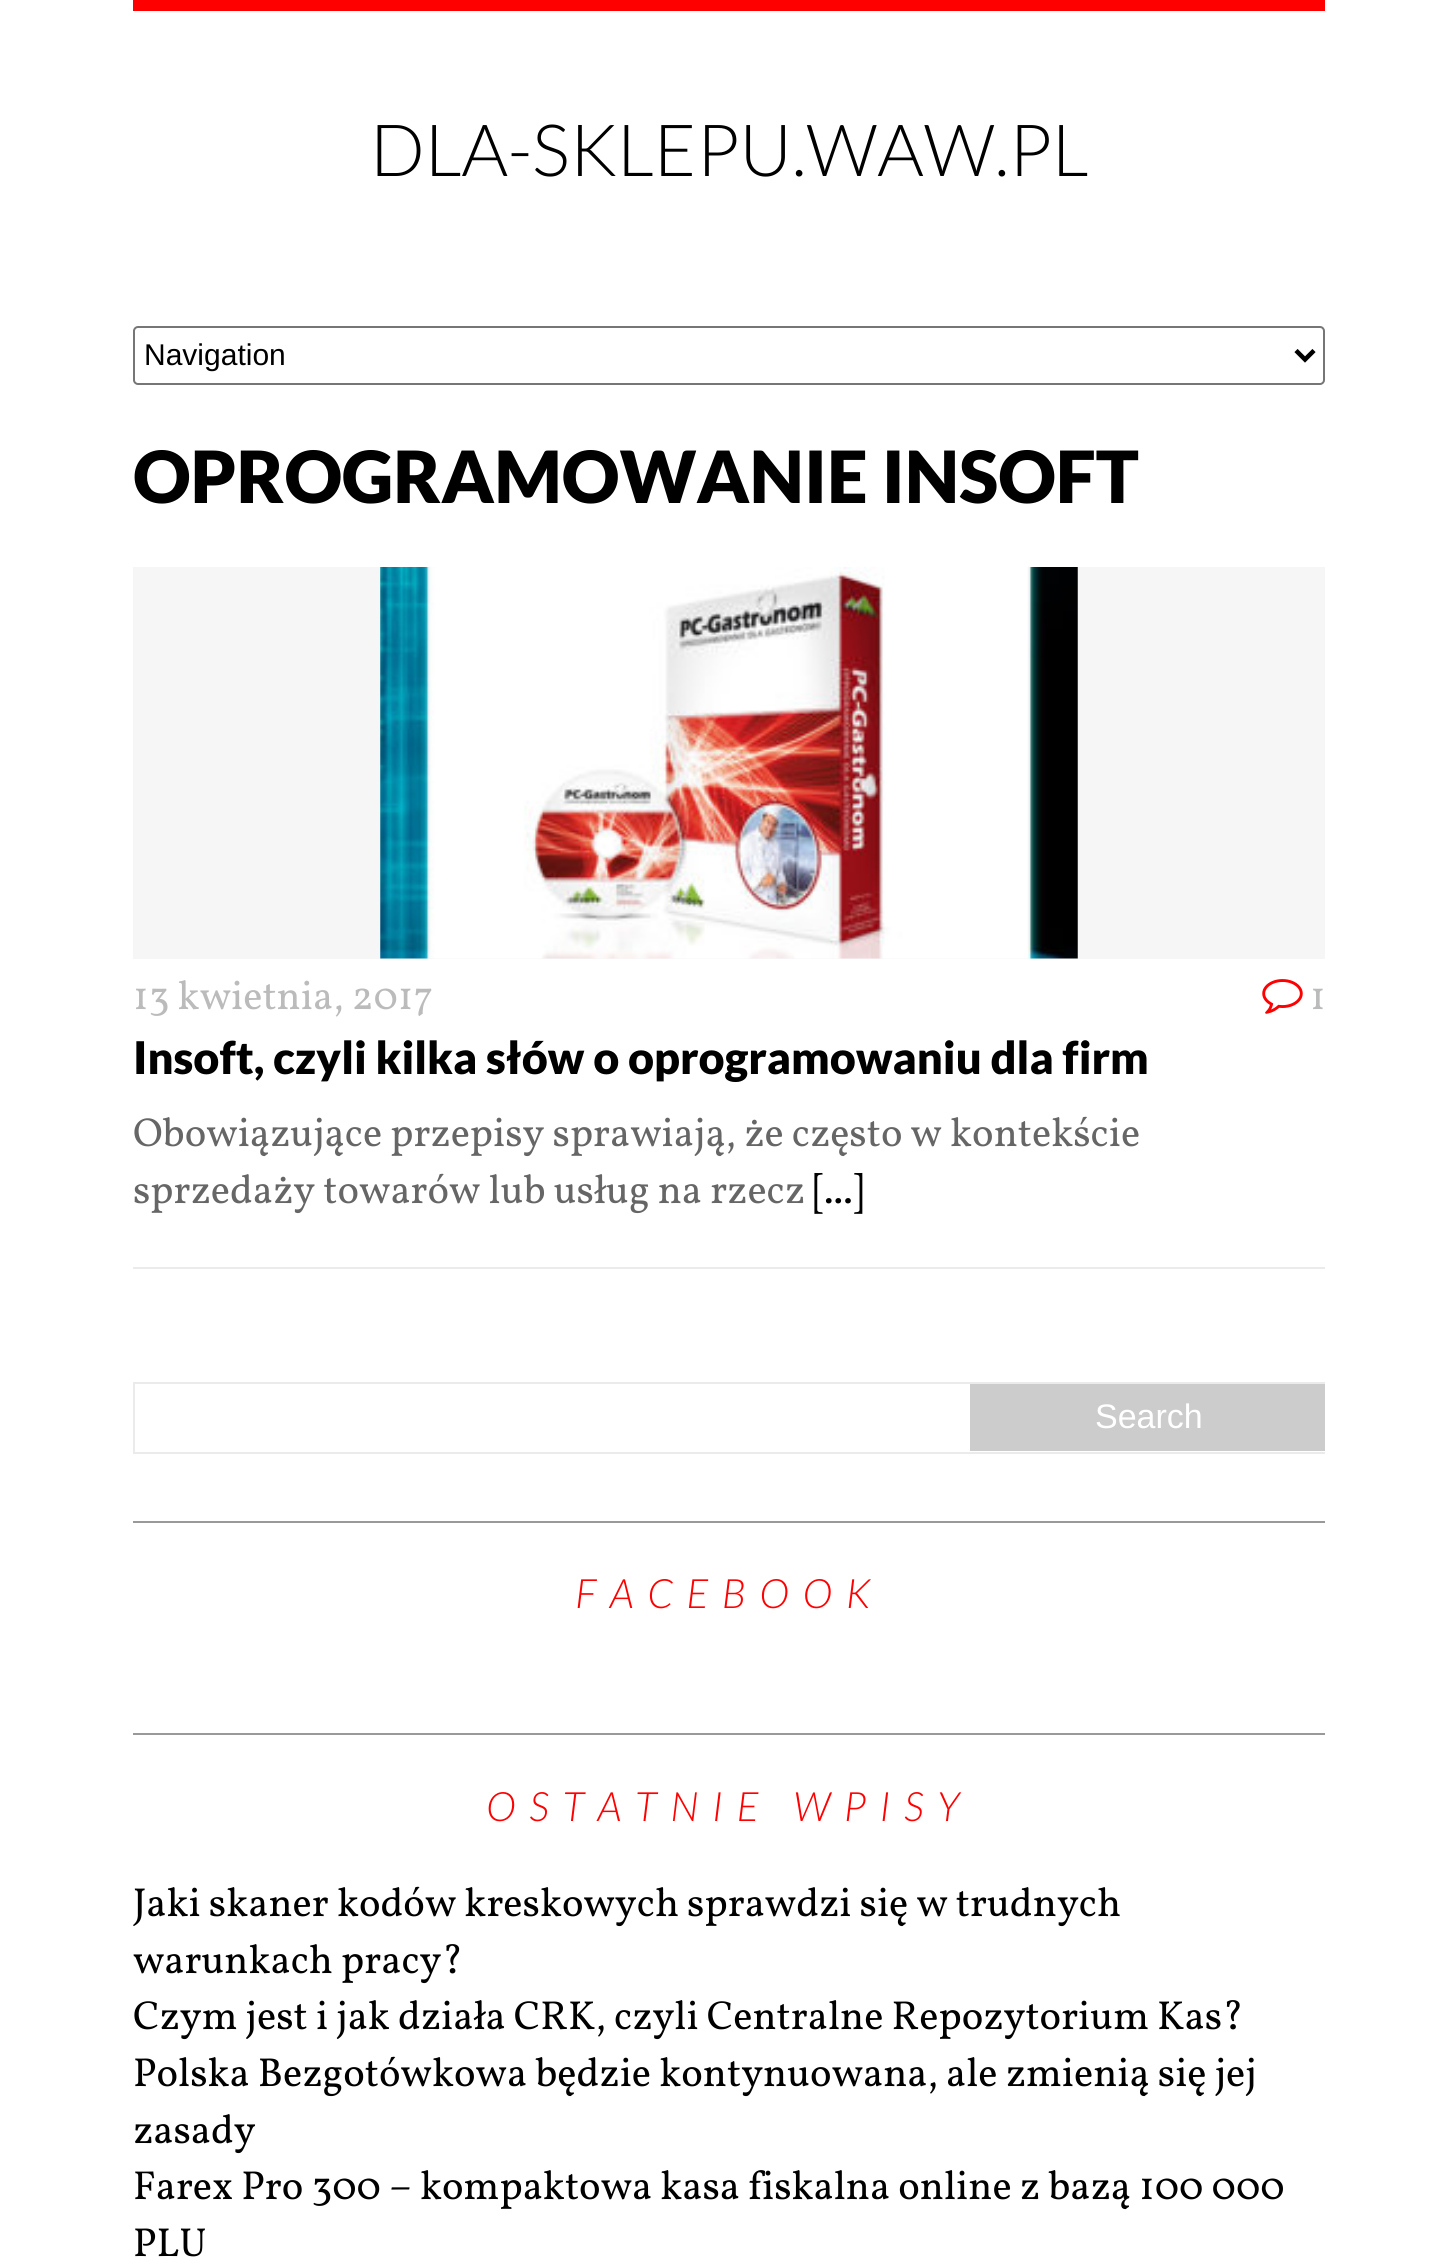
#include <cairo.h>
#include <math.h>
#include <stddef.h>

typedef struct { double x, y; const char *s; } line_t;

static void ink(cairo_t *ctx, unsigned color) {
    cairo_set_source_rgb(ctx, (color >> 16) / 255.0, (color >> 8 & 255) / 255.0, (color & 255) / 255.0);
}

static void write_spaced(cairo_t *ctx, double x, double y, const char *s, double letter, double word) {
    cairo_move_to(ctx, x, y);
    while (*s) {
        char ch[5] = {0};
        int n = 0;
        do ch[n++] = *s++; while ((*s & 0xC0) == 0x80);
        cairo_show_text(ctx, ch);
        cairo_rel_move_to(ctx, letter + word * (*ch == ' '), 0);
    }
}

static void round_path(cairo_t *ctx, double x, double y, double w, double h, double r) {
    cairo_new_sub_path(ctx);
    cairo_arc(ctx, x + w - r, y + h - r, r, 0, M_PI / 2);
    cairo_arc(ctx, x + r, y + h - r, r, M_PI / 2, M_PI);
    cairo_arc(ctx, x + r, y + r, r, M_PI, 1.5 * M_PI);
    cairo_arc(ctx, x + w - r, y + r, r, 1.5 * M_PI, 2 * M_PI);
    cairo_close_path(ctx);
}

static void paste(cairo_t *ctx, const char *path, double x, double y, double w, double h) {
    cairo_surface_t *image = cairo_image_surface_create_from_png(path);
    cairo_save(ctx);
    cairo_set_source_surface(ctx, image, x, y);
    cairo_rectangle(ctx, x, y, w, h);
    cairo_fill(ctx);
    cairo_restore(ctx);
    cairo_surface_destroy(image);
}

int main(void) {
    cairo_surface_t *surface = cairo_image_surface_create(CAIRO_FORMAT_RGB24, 1456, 2268);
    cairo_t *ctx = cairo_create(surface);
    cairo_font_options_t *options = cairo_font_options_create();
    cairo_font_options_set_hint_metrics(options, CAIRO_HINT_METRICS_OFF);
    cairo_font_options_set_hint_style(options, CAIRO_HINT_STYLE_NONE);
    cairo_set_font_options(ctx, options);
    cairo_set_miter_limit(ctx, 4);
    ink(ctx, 0xFFFFFF);
    cairo_paint(ctx);
    ink(ctx, 0xFF0000);
    cairo_rectangle(ctx, 133, 0, 1192, 11);
    cairo_fill(ctx);
    cairo_select_font_face(ctx, "Lato Light", CAIRO_FONT_SLANT_NORMAL, CAIRO_FONT_WEIGHT_NORMAL);
    cairo_set_font_size(ctx, 72);
    ink(ctx, 0x000000);
    cairo_move_to(ctx, 370, 176);
    cairo_show_text(ctx, "DLA-SKLEPU.WAW.PL");
    round_path(ctx, 134, 327, 1190, 57, 4);
    ink(ctx, 0x767676);
    cairo_stroke(ctx);
    cairo_new_path(ctx);
    cairo_move_to(ctx, 1296, 350.5);
    cairo_line_to(ctx, 1305, 359.5);
    cairo_line_to(ctx, 1314, 350.5);
    ink(ctx, 0x000000);
    cairo_set_line_width(ctx, 4.5);
    cairo_stroke(ctx);
    cairo_select_font_face(ctx, "Liberation Sans", CAIRO_FONT_SLANT_NORMAL, CAIRO_FONT_WEIGHT_NORMAL);
    cairo_set_font_size(ctx, 30);
    cairo_move_to(ctx, 144, 365);
    cairo_show_text(ctx, "Navigation");
    cairo_select_font_face(ctx, "Lato Black", CAIRO_FONT_SLANT_NORMAL, CAIRO_FONT_WEIGHT_NORMAL);
    cairo_set_font_size(ctx, 72);
    cairo_move_to(ctx, 133, 503);
    cairo_show_text(ctx, "OPROGRAMOWANIE INSOFT");
    ink(ctx, 0xEBEBEB);
    cairo_rectangle(ctx, 133, 1267, 1192, 2);
    cairo_fill(ctx);
    ink(ctx, 0xF6F6F6);
    cairo_rectangle(ctx, 133, 567, 1192, 392);
    cairo_fill(ctx);
    paste(ctx, "media/1.png", 380, 567, 698, 392);
    cairo_select_font_face(ctx, "Vollkorn", CAIRO_FONT_SLANT_NORMAL, CAIRO_FONT_WEIGHT_NORMAL);
    cairo_set_font_size(ctx, 40.5);
    ink(ctx, 0xBBBBBB);
    cairo_move_to(ctx, 133, 1009);
    cairo_show_text(ctx, "13 kwietnia, 2017");
    paste(ctx, "media/2.png", 1262, 979, 41, 35);
    cairo_move_to(ctx, 1310, 1009);
    cairo_show_text(ctx, "1");
    cairo_select_font_face(ctx, "Lato Black", CAIRO_FONT_SLANT_NORMAL, CAIRO_FONT_WEIGHT_NORMAL);
    cairo_set_font_size(ctx, 45);
    ink(ctx, 0x000000);
    cairo_move_to(ctx, 133, 1074);
    cairo_show_text(ctx, "Insoft, czyli kilka słów o oprogramowaniu dla firm");
    cairo_select_font_face(ctx, "Vollkorn", CAIRO_FONT_SLANT_NORMAL, CAIRO_FONT_WEIGHT_NORMAL);
    cairo_set_font_size(ctx, 40.5);
    ink(ctx, 0x666666);
    cairo_move_to(ctx, 133, 1146);
    cairo_show_text(ctx, "Obowiązujące przepisy sprawiają, że często w kontekście");
    cairo_move_to(ctx, 133, 1203);
    cairo_show_text(ctx, "sprzedaży towarów lub usług na rzecz");
    ink(ctx, 0x000000);
    cairo_move_to(ctx, 813, 1203);
    cairo_show_text(ctx, "[...]");
    cairo_save(ctx);
    cairo_rectangle(ctx, 133, 1382, 1192, 72);
    cairo_clip(ctx);
    cairo_rectangle(ctx, 134, 1383, 1195, 70);
    ink(ctx, 0xEBEBEB);
    cairo_set_line_width(ctx, 2);
    cairo_stroke(ctx);
    cairo_restore(ctx);
    ink(ctx, 0xCCCCCC);
    cairo_rectangle(ctx, 970, 1384, 355, 67);
    cairo_fill(ctx);
    cairo_select_font_face(ctx, "Liberation Sans", CAIRO_FONT_SLANT_NORMAL, CAIRO_FONT_WEIGHT_NORMAL);
    cairo_set_font_size(ctx, 34);
    ink(ctx, 0xFFFFFF);
    cairo_move_to(ctx, 1095, 1428);
    cairo_show_text(ctx, "Search");
    ink(ctx, 0x999999);
    cairo_rectangle(ctx, 133, 1521, 1192, 2);
    cairo_fill(ctx);
    cairo_select_font_face(ctx, "Lato Light", CAIRO_FONT_SLANT_ITALIC, CAIRO_FONT_WEIGHT_NORMAL);
    cairo_set_font_size(ctx, 40.5);
    ink(ctx, 0xFF0000);
    write_spaced(ctx, 575, 1608, "FACEBOOK", 13.5, 0);
    ink(ctx, 0x999999);
    cairo_rectangle(ctx, 133, 1733, 1192, 2);
    cairo_fill(ctx);
    ink(ctx, 0xFF0000);
    write_spaced(ctx, 486, 1821, "OSTATNIE WPISY", 13.5, 0);
    cairo_select_font_face(ctx, "Vollkorn", CAIRO_FONT_SLANT_NORMAL, CAIRO_FONT_WEIGHT_NORMAL);
    ink(ctx, 0x000000);
    {
        static const line_t items[] = {
            {133, 1916, "Jaki skaner kodów kreskowych sprawdzi się w trudnych"},
            {133, 1973, "warunkach pracy?"},
            {133, 2029, "Czym jest i jak działa CRK, czyli Centralne Repozytorium Kas?"},
            {133, 2086, "Polska Bezgotówkowa będzie kontynuowana, ale zmienią się jej"},
            {133, 2143, "zasady"},
            {133, 2199, "Farex Pro 300 – kompaktowa kasa fiskalna online z bazą 100 000"},
            {133, 2256, "PLU"},
        };
        for (size_t i = 0; i < sizeof items / sizeof *items; i++) {
            cairo_move_to(ctx, items[i].x, items[i].y);
            cairo_show_text(ctx, items[i].s);
        }
    }
    cairo_surface_write_to_png(surface, "image.png");
    cairo_font_options_destroy(options);
    cairo_destroy(ctx);
    cairo_surface_destroy(surface);
    return 0;
}
